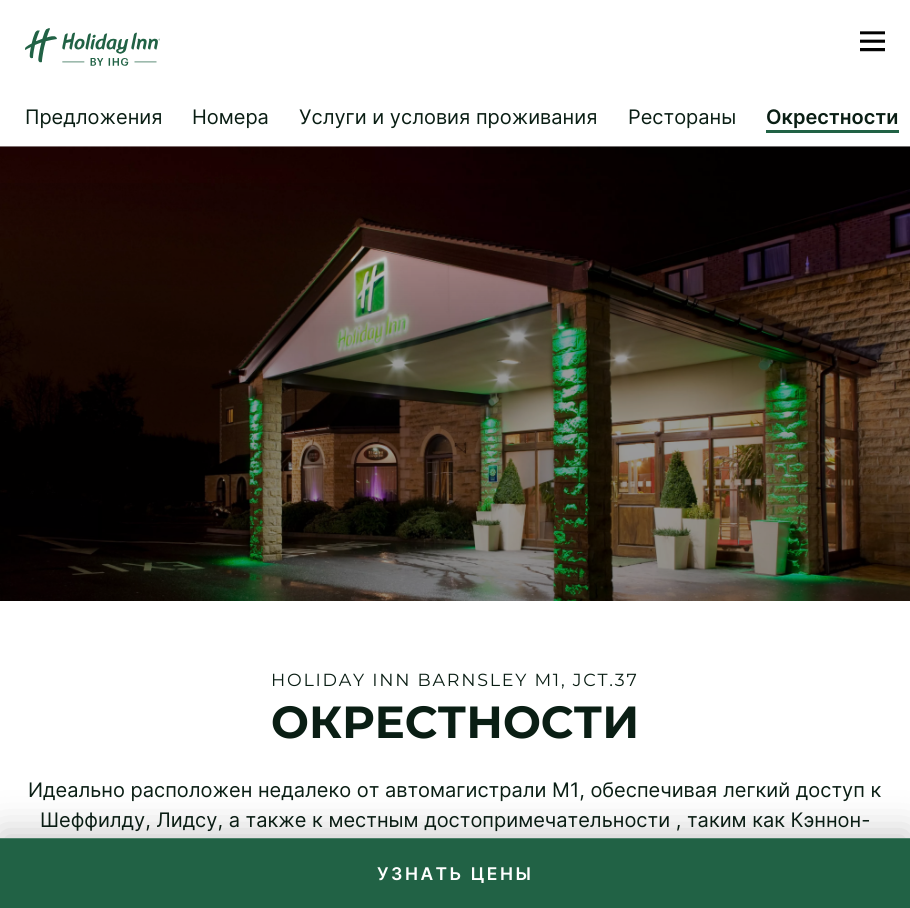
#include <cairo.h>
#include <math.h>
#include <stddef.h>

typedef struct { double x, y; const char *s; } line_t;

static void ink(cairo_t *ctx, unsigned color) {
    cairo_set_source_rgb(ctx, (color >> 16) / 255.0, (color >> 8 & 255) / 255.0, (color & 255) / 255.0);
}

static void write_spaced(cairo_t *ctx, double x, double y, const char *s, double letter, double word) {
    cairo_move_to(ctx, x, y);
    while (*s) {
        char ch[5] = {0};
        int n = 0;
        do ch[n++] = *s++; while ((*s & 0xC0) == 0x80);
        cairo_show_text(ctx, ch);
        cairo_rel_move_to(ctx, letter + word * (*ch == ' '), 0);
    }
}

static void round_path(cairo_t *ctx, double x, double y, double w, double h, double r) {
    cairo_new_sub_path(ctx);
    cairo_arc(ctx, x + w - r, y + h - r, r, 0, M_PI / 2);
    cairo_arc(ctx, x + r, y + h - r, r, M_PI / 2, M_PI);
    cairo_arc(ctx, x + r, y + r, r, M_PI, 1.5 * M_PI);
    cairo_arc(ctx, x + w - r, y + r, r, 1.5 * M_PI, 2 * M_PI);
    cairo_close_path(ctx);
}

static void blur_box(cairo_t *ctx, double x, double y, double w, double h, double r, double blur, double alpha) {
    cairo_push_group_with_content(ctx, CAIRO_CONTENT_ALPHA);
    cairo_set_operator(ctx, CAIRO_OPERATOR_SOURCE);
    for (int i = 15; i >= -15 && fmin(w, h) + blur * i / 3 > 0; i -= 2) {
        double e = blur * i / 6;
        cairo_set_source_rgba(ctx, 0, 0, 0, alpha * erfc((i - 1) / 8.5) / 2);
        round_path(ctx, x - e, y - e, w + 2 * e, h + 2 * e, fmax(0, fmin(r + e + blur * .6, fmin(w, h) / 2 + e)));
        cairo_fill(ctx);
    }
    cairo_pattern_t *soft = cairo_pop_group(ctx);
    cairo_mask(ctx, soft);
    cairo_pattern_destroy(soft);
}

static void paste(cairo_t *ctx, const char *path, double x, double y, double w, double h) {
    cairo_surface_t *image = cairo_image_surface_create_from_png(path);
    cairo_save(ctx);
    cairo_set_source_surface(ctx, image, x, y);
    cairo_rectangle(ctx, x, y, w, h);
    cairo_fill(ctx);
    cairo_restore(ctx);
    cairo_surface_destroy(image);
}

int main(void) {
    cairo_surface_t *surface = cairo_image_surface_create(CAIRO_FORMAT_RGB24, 910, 908);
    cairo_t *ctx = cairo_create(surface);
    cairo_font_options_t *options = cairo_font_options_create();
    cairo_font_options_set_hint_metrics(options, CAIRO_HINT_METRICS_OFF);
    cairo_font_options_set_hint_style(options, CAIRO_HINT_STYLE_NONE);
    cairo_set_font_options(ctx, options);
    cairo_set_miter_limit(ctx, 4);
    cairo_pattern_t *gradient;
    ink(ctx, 0xFFFFFF);
    cairo_paint(ctx);
    paste(ctx, "media/1.png", 25, 28, 135, 38);
    paste(ctx, "media/2.png", 860, 31, 25, 21);
    cairo_select_font_face(ctx, "Inter", CAIRO_FONT_SLANT_NORMAL, CAIRO_FONT_WEIGHT_NORMAL);
    cairo_set_font_size(ctx, 20);
    ink(ctx, 0x0A1E14);
    {
        static const line_t items[] = {
            {25, 124, "Предложения"},
            {192, 124, "Номера"},
            {299, 124, "Услуги и условия проживания"},
            {628, 124, "Рестораны"},
        };
        for (size_t i = 0; i < sizeof items / sizeof *items; i++) {
            cairo_move_to(ctx, items[i].x, items[i].y);
            cairo_show_text(ctx, items[i].s);
        }
    }
    cairo_select_font_face(ctx, "Inter SemiBold", CAIRO_FONT_SLANT_NORMAL, CAIRO_FONT_WEIGHT_NORMAL);
    cairo_move_to(ctx, 766, 124);
    cairo_show_text(ctx, "Окрестности");
    ink(ctx, 0x216245);
    cairo_rectangle(ctx, 766, 130, 133, 3);
    cairo_fill(ctx);
    paste(ctx, "media/3.png", 0, 146, 910, 455);
    gradient = cairo_pattern_create_linear(455, 146, 455, 601);
    cairo_pattern_add_color_stop_rgba(gradient, 0, 0, 0, 0, 0);
    cairo_pattern_add_color_stop_rgba(gradient, 0.4, 0, 0, 0, 0.4);
    cairo_set_source(ctx, gradient);
    cairo_pattern_destroy(gradient);
    cairo_rectangle(ctx, 0, 183, 910, 418);
    cairo_fill(ctx);
    cairo_select_font_face(ctx, "Montserrat", CAIRO_FONT_SLANT_NORMAL, CAIRO_FONT_WEIGHT_NORMAL);
    cairo_set_font_size(ctx, 17.5);
    ink(ctx, 0x0A1E14);
    write_spaced(ctx, 271, 686, "HOLIDAY INN BARNSLEY M1, JCT.37", 1.75, 0);
    cairo_select_font_face(ctx, "Montserrat", CAIRO_FONT_SLANT_NORMAL, CAIRO_FONT_WEIGHT_BOLD);
    cairo_set_font_size(ctx, 45);
    cairo_move_to(ctx, 271, 738);
    cairo_show_text(ctx, "ОКРЕСТНОСТИ");
    cairo_select_font_face(ctx, "Inter", CAIRO_FONT_SLANT_NORMAL, CAIRO_FONT_WEIGHT_NORMAL);
    cairo_set_font_size(ctx, 20);
    cairo_move_to(ctx, 28, 797);
    cairo_show_text(ctx, "Идеально расположен недалеко от автомагистрали M1, обеспечивая легкий доступ к");
    cairo_move_to(ctx, 40, 827);
    cairo_show_text(ctx, "Шеффилду, Лидсу, а также к местным достопримечательности , таким как Кэннон-");
    ink(ctx, 0x000000);
    blur_box(ctx, 0, 831, 910, 72, 0, 19, 0.2);
    ink(ctx, 0x216245);
    cairo_rectangle(ctx, 0, 839, 910, 69);
    cairo_fill(ctx);
    ink(ctx, 0x4D816A);
    cairo_rectangle(ctx, 0, 838, 910, 1);
    cairo_fill(ctx);
    cairo_select_font_face(ctx, "Inter SemiBold", CAIRO_FONT_SLANT_NORMAL, CAIRO_FONT_WEIGHT_NORMAL);
    cairo_set_font_size(ctx, 17.5);
    ink(ctx, 0xFFFFFF);
    write_spaced(ctx, 377, 880, "УЗНАТЬ ЦЕНЫ", 2.5, 0);
    cairo_surface_write_to_png(surface, "image.png");
    cairo_font_options_destroy(options);
    cairo_destroy(ctx);
    cairo_surface_destroy(surface);
    return 0;
}
